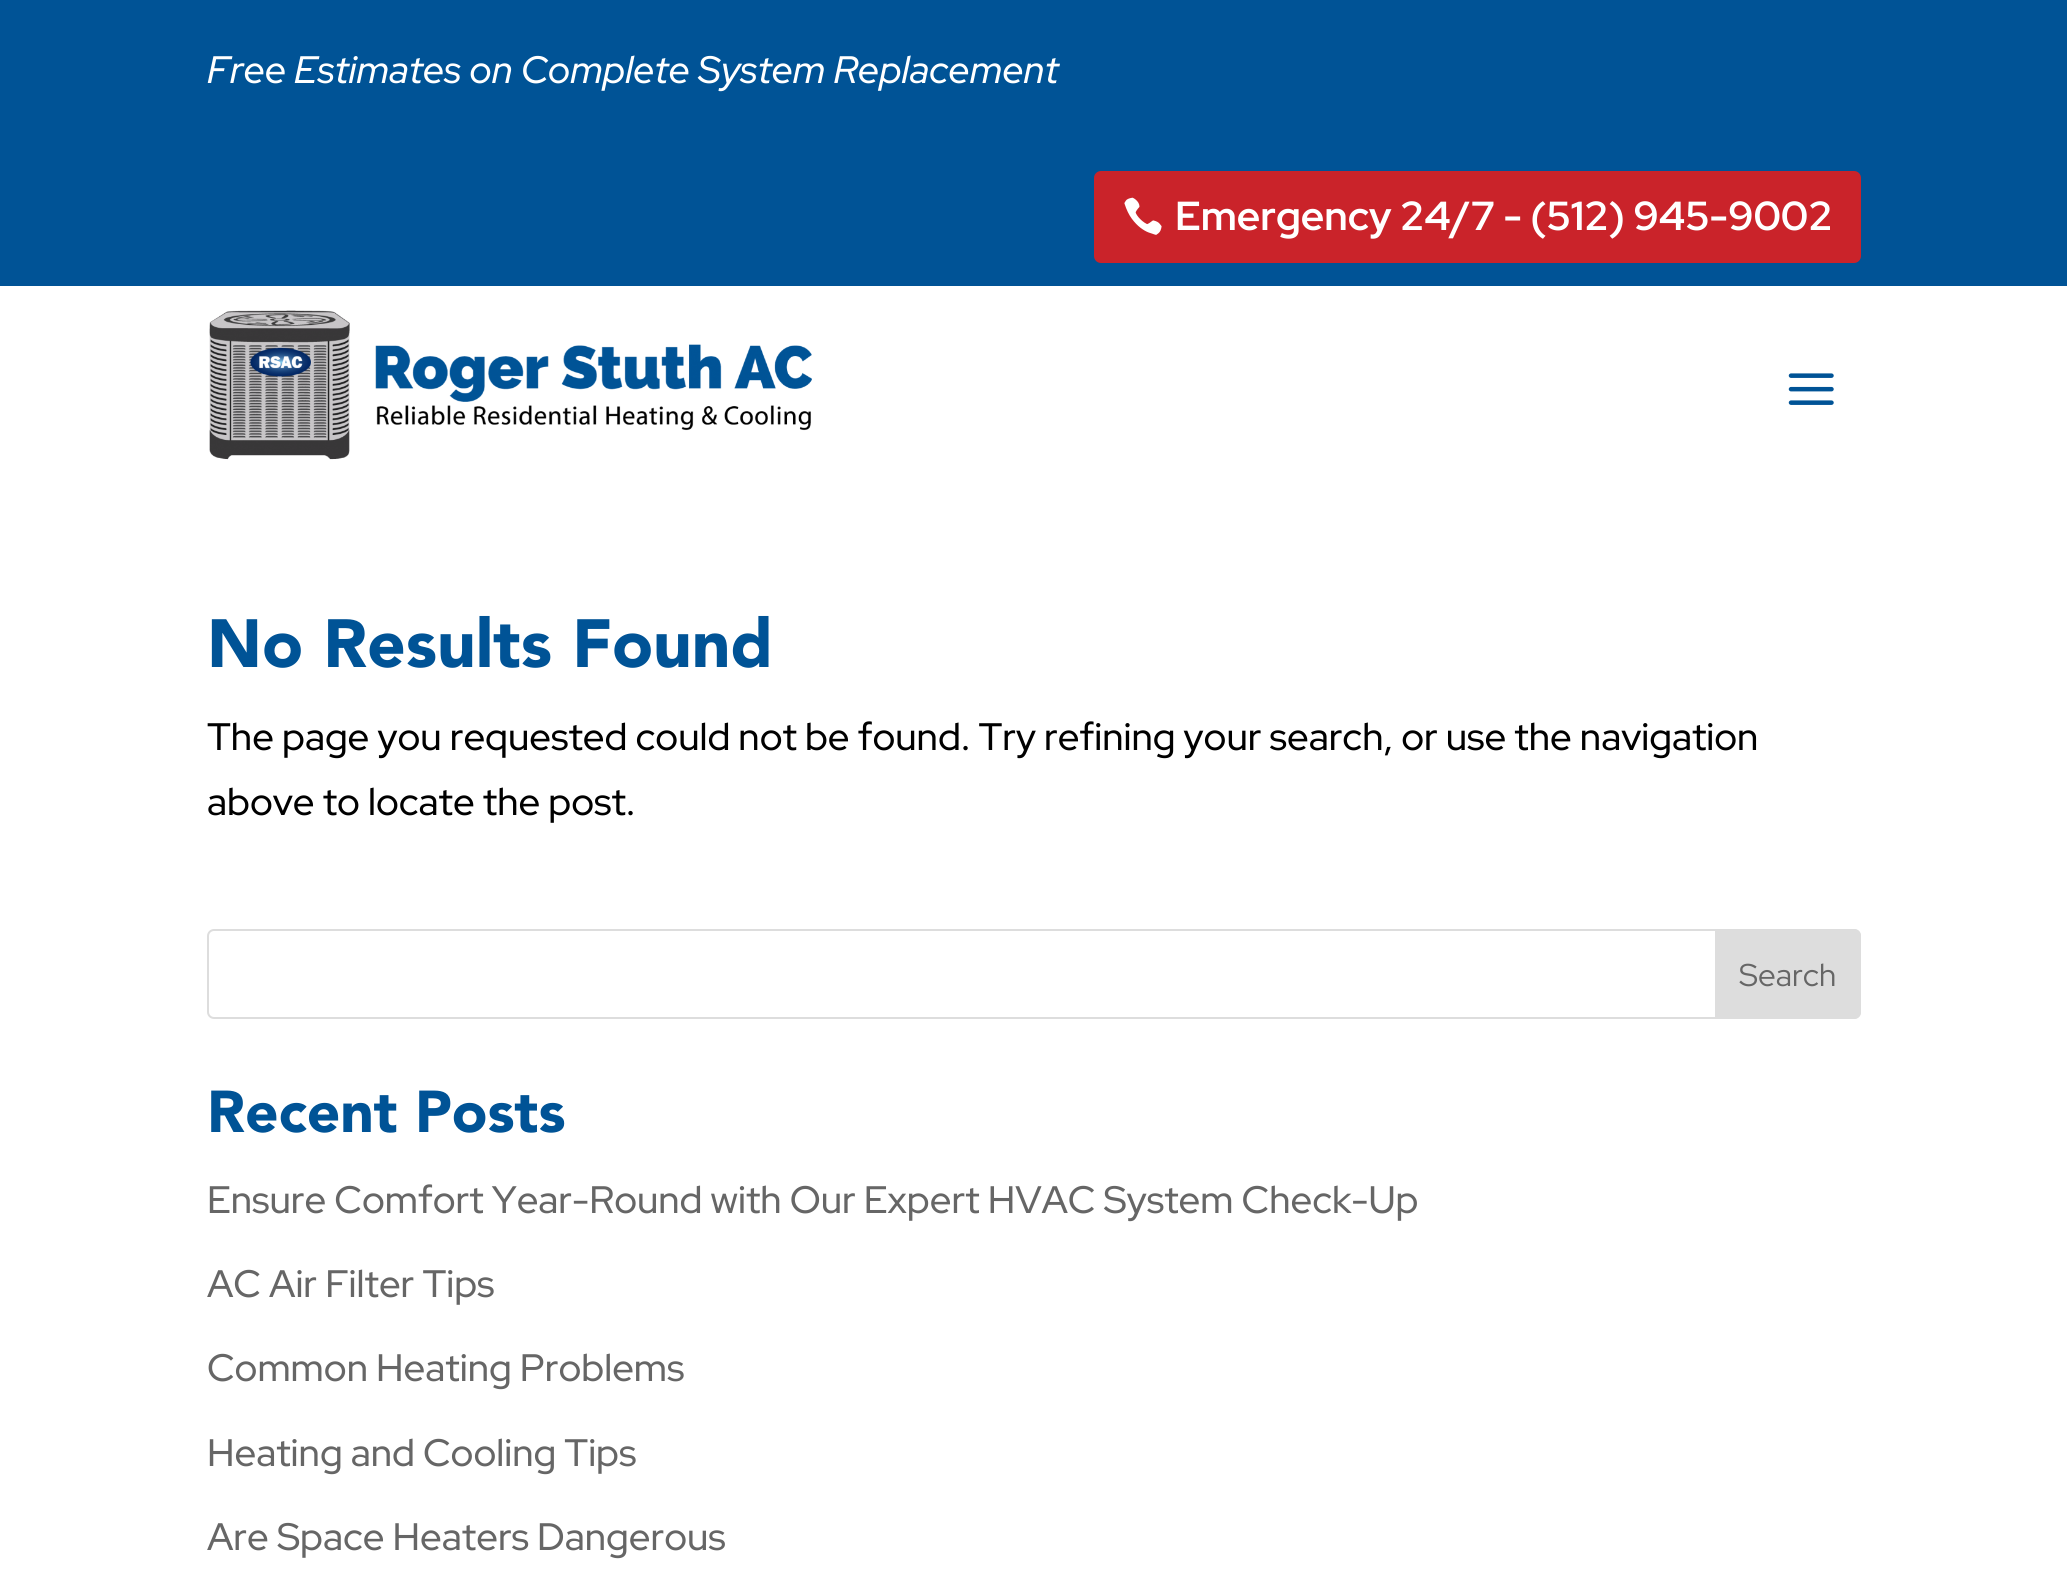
#include <cairo.h>
#include <math.h>
#include <stddef.h>

typedef struct { double x, y; const char *s; } line_t;

static void ink(cairo_t *ctx, unsigned color) {
    cairo_set_source_rgb(ctx, (color >> 16) / 255.0, (color >> 8 & 255) / 255.0, (color & 255) / 255.0);
}

static void round_path(cairo_t *ctx, double x, double y, double w, double h, double r) {
    cairo_new_sub_path(ctx);
    cairo_arc(ctx, x + w - r, y + h - r, r, 0, M_PI / 2);
    cairo_arc(ctx, x + r, y + h - r, r, M_PI / 2, M_PI);
    cairo_arc(ctx, x + r, y + r, r, M_PI, 1.5 * M_PI);
    cairo_arc(ctx, x + w - r, y + r, r, 1.5 * M_PI, 2 * M_PI);
    cairo_close_path(ctx);
}

static void paste(cairo_t *ctx, const char *path, double x, double y, double w, double h) {
    cairo_surface_t *image = cairo_image_surface_create_from_png(path);
    cairo_save(ctx);
    cairo_set_source_surface(ctx, image, x, y);
    cairo_rectangle(ctx, x, y, w, h);
    cairo_fill(ctx);
    cairo_restore(ctx);
    cairo_surface_destroy(image);
}

int main(void) {
    cairo_surface_t *surface = cairo_image_surface_create(CAIRO_FORMAT_RGB24, 2067, 1583);
    cairo_t *ctx = cairo_create(surface);
    cairo_font_options_t *options = cairo_font_options_create();
    cairo_font_options_set_hint_metrics(options, CAIRO_HINT_METRICS_OFF);
    cairo_font_options_set_hint_style(options, CAIRO_HINT_STYLE_NONE);
    cairo_set_font_options(ctx, options);
    cairo_set_miter_limit(ctx, 4);
    ink(ctx, 0x005396);
    cairo_paint(ctx);
    cairo_select_font_face(ctx, "Red Hat Display Medium", CAIRO_FONT_SLANT_ITALIC, CAIRO_FONT_WEIGHT_NORMAL);
    cairo_set_font_size(ctx, 38.25);
    ink(ctx, 0xFFFFFF);
    cairo_move_to(ctx, 207, 83);
    cairo_show_text(ctx, "Free Estimates on Complete System Replacement");
    ink(ctx, 0xCA232A);
    round_path(ctx, 1094, 171, 767, 92, 7);
    cairo_fill(ctx);
    paste(ctx, "media/1.png", 1124, 197, 38, 38);
    cairo_select_font_face(ctx, "Red Hat Display", CAIRO_FONT_SLANT_NORMAL, CAIRO_FONT_WEIGHT_BOLD);
    cairo_set_font_size(ctx, 40.5);
    ink(ctx, 0xFFFFFF);
    cairo_move_to(ctx, 1175, 230);
    cairo_show_text(ctx, "Emergency 24/7 - (512) 945-9002");
    cairo_rectangle(ctx, 0, 286, 2067, 1297);
    cairo_fill(ctx);
    paste(ctx, "media/2.png", 209, 310, 603, 150);
    paste(ctx, "media/3.png", 1788, 373, 46, 32);
    cairo_select_font_face(ctx, "Avenir Black", CAIRO_FONT_SLANT_NORMAL, CAIRO_FONT_WEIGHT_NORMAL);
    cairo_set_font_size(ctx, 67.5);
    ink(ctx, 0x005396);
    cairo_move_to(ctx, 207, 667);
    cairo_show_text(ctx, "No Results Found");
    cairo_select_font_face(ctx, "Red Hat Display Medium", CAIRO_FONT_SLANT_NORMAL, CAIRO_FONT_WEIGHT_NORMAL);
    cairo_set_font_size(ctx, 38.25);
    ink(ctx, 0x000000);
    cairo_move_to(ctx, 207, 750);
    cairo_show_text(ctx, "The page you requested could not be found. Try refining your search, or use the navigation");
    cairo_move_to(ctx, 207, 815);
    cairo_show_text(ctx, "above to locate the post.");
    round_path(ctx, 208, 930, 1652, 88, 6);
    ink(ctx, 0xDDDDDD);
    cairo_stroke(ctx);
    cairo_new_path(ctx);
    cairo_move_to(ctx, 1716, 930);
    cairo_line_to(ctx, 1854, 930);
    cairo_curve_to(ctx, 1857.5, 930, 1860, 932.5, 1860, 936);
    cairo_line_to(ctx, 1860, 1012);
    cairo_curve_to(ctx, 1860, 1015.5, 1857.5, 1018, 1854, 1018);
    cairo_line_to(ctx, 1716, 1018);
    cairo_close_path(ctx);
    cairo_fill_preserve(ctx);
    cairo_stroke(ctx);
    cairo_select_font_face(ctx, "Red Hat Display", CAIRO_FONT_SLANT_NORMAL, CAIRO_FONT_WEIGHT_NORMAL);
    cairo_set_font_size(ctx, 31.5);
    ink(ctx, 0x666666);
    cairo_move_to(ctx, 1739, 986);
    cairo_show_text(ctx, "Search");
    cairo_select_font_face(ctx, "Avenir Black", CAIRO_FONT_SLANT_NORMAL, CAIRO_FONT_WEIGHT_NORMAL);
    cairo_set_font_size(ctx, 58.5);
    ink(ctx, 0x005396);
    cairo_move_to(ctx, 207, 1132);
    cairo_show_text(ctx, "Recent Posts");
    cairo_select_font_face(ctx, "Red Hat Display Medium", CAIRO_FONT_SLANT_NORMAL, CAIRO_FONT_WEIGHT_NORMAL);
    cairo_set_font_size(ctx, 38.25);
    ink(ctx, 0x666666);
    {
        static const line_t items[] = {
            {207, 1213, "Ensure Comfort Year-Round with Our Expert HVAC System Check-Up"},
            {207, 1297, "AC Air Filter Tips"},
            {207, 1381, "Common Heating Problems"},
            {207, 1466, "Heating and Cooling Tips"},
            {207, 1550, "Are Space Heaters Dangerous"},
        };
        for (size_t i = 0; i < sizeof items / sizeof *items; i++) {
            cairo_move_to(ctx, items[i].x, items[i].y);
            cairo_show_text(ctx, items[i].s);
        }
    }
    cairo_surface_write_to_png(surface, "image.png");
    cairo_font_options_destroy(options);
    cairo_destroy(ctx);
    cairo_surface_destroy(surface);
    return 0;
}
